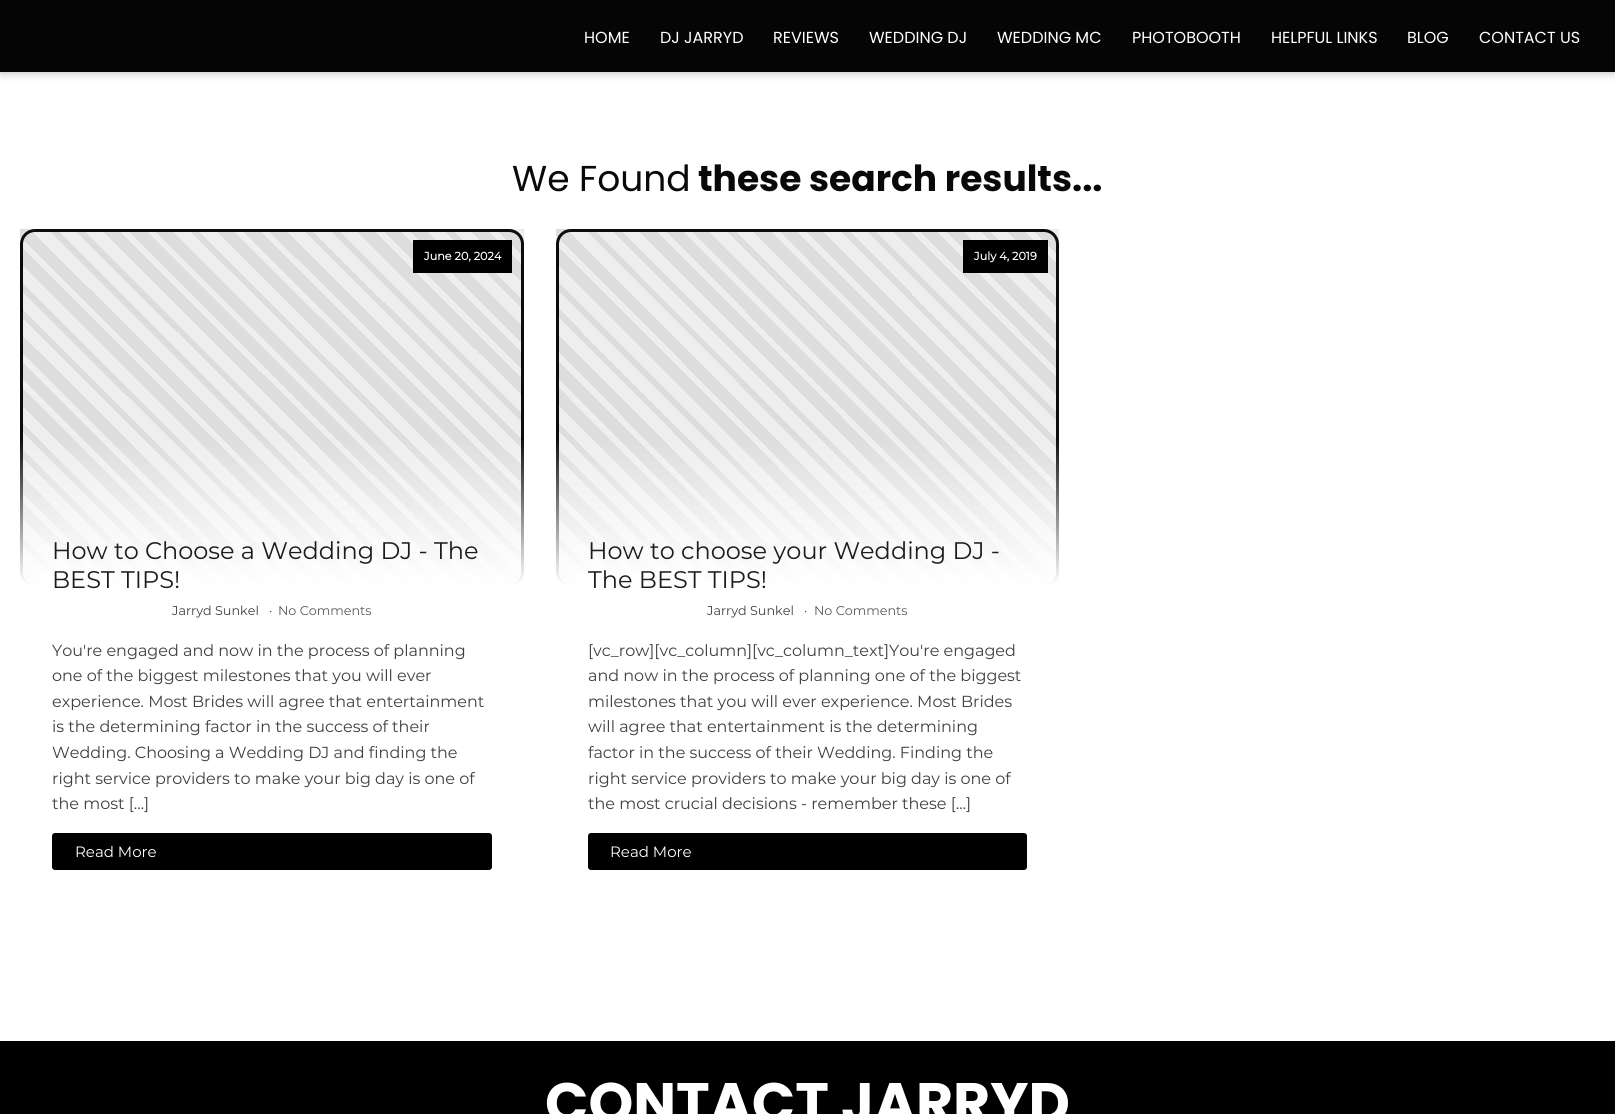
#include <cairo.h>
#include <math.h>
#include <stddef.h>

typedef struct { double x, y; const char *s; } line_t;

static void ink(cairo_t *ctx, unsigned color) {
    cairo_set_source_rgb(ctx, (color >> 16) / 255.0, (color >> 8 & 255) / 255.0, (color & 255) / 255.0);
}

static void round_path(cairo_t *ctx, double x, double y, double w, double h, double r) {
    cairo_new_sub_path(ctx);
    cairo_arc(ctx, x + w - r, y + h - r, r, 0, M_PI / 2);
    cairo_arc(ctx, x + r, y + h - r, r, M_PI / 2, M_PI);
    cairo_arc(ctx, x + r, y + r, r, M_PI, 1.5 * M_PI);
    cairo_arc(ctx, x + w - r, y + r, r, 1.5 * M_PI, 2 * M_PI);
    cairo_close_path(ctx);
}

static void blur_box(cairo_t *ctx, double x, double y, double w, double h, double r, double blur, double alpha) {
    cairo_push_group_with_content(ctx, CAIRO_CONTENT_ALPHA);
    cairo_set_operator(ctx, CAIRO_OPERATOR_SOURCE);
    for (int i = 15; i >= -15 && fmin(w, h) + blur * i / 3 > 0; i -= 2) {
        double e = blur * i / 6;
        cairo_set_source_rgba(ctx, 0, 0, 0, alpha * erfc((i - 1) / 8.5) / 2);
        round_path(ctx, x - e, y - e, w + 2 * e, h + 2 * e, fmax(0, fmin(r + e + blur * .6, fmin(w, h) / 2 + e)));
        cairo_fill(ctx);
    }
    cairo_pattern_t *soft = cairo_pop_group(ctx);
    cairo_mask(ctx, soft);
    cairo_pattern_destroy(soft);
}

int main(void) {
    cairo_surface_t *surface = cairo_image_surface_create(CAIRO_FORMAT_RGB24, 1615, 1114);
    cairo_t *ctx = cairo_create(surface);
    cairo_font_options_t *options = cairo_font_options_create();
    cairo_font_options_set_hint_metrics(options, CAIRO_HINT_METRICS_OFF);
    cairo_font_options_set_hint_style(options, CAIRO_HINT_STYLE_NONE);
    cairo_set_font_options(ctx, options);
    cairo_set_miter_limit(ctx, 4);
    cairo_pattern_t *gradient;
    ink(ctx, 0xFFFFFF);
    cairo_paint(ctx);
    ink(ctx, 0x000000);
    blur_box(ctx, 0, 0, 1615, 72, 0, 5, 0.3);
    ink(ctx, 0x050505);
    cairo_rectangle(ctx, 0, 0, 1615, 72);
    cairo_fill(ctx);
    cairo_select_font_face(ctx, "Poppins", CAIRO_FONT_SLANT_NORMAL, CAIRO_FONT_WEIGHT_NORMAL);
    cairo_set_font_size(ctx, 16);
    ink(ctx, 0xFFFFFF);
    {
        static const line_t items[] = {
            {584, 43, "HOME"},
            {660, 43, "DJ JARRYD"},
            {773, 43, "REVIEWS"},
            {869, 43, "WEDDING DJ"},
            {997, 43, "WEDDING MC"},
            {1132, 43, "PHOTOBOOTH"},
            {1271, 43, "HELPFUL LINKS"},
            {1407, 43, "BLOG"},
            {1479, 43, "CONTACT US"},
        };
        for (size_t i = 0; i < sizeof items / sizeof *items; i++) {
            cairo_move_to(ctx, items[i].x, items[i].y);
            cairo_show_text(ctx, items[i].s);
        }
    }
    cairo_set_font_size(ctx, 36);
    ink(ctx, 0x0A0909);
    cairo_move_to(ctx, 512, 191);
    cairo_show_text(ctx, "We Found");
    cairo_select_font_face(ctx, "Poppins", CAIRO_FONT_SLANT_NORMAL, CAIRO_FONT_WEIGHT_BOLD);
    cairo_move_to(ctx, 698, 191);
    cairo_show_text(ctx, "these search results...");
    gradient = cairo_pattern_create_linear(57, 624, 495, 185);
    cairo_pattern_add_color_stop_rgba(gradient, 0, 0.933, 0.933, 0.933, 1);
    cairo_pattern_add_color_stop_rgba(gradient, 0.02, 0.933, 0.933, 0.933, 1);
    cairo_pattern_add_color_stop_rgba(gradient, 0.02, 0.867, 0.867, 0.867, 1);
    cairo_pattern_add_color_stop_rgba(gradient, 0.03, 0.867, 0.867, 0.867, 1);
    cairo_pattern_add_color_stop_rgba(gradient, 0.03, 0.933, 0.933, 0.933, 1);
    cairo_pattern_add_color_stop_rgba(gradient, 0.05, 0.933, 0.933, 0.933, 1);
    cairo_pattern_add_color_stop_rgba(gradient, 0.05, 0.867, 0.867, 0.867, 1);
    cairo_pattern_add_color_stop_rgba(gradient, 0.06, 0.867, 0.867, 0.867, 1);
    cairo_pattern_add_color_stop_rgba(gradient, 0.06, 0.933, 0.933, 0.933, 1);
    cairo_pattern_add_color_stop_rgba(gradient, 0.08, 0.933, 0.933, 0.933, 1);
    cairo_pattern_add_color_stop_rgba(gradient, 0.08, 0.867, 0.867, 0.867, 1);
    cairo_pattern_add_color_stop_rgba(gradient, 0.1, 0.867, 0.867, 0.867, 1);
    cairo_pattern_add_color_stop_rgba(gradient, 0.1, 0.933, 0.933, 0.933, 1);
    cairo_pattern_add_color_stop_rgba(gradient, 0.11, 0.933, 0.933, 0.933, 1);
    cairo_pattern_add_color_stop_rgba(gradient, 0.11, 0.867, 0.867, 0.867, 1);
    cairo_pattern_add_color_stop_rgba(gradient, 0.13, 0.867, 0.867, 0.867, 1);
    cairo_pattern_add_color_stop_rgba(gradient, 0.13, 0.933, 0.933, 0.933, 1);
    cairo_pattern_add_color_stop_rgba(gradient, 0.15, 0.933, 0.933, 0.933, 1);
    cairo_pattern_add_color_stop_rgba(gradient, 0.15, 0.867, 0.867, 0.867, 1);
    cairo_pattern_add_color_stop_rgba(gradient, 0.16, 0.867, 0.867, 0.867, 1);
    cairo_pattern_add_color_stop_rgba(gradient, 0.16, 0.933, 0.933, 0.933, 1);
    cairo_pattern_add_color_stop_rgba(gradient, 0.18, 0.933, 0.933, 0.933, 1);
    cairo_pattern_add_color_stop_rgba(gradient, 0.18, 0.867, 0.867, 0.867, 1);
    cairo_pattern_add_color_stop_rgba(gradient, 0.19, 0.867, 0.867, 0.867, 1);
    cairo_pattern_add_color_stop_rgba(gradient, 0.19, 0.933, 0.933, 0.933, 1);
    cairo_pattern_add_color_stop_rgba(gradient, 0.21, 0.933, 0.933, 0.933, 1);
    cairo_pattern_add_color_stop_rgba(gradient, 0.21, 0.867, 0.867, 0.867, 1);
    cairo_pattern_add_color_stop_rgba(gradient, 0.23, 0.867, 0.867, 0.867, 1);
    cairo_pattern_add_color_stop_rgba(gradient, 0.23, 0.933, 0.933, 0.933, 1);
    cairo_pattern_add_color_stop_rgba(gradient, 0.24, 0.933, 0.933, 0.933, 1);
    cairo_pattern_add_color_stop_rgba(gradient, 0.24, 0.867, 0.867, 0.867, 1);
    cairo_pattern_add_color_stop_rgba(gradient, 0.26, 0.867, 0.867, 0.867, 1);
    cairo_pattern_add_color_stop_rgba(gradient, 0.26, 0.933, 0.933, 0.933, 1);
    cairo_pattern_add_color_stop_rgba(gradient, 0.27, 0.933, 0.933, 0.933, 1);
    cairo_pattern_add_color_stop_rgba(gradient, 0.27, 0.867, 0.867, 0.867, 1);
    cairo_pattern_add_color_stop_rgba(gradient, 0.29, 0.867, 0.867, 0.867, 1);
    cairo_pattern_add_color_stop_rgba(gradient, 0.29, 0.933, 0.933, 0.933, 1);
    cairo_pattern_add_color_stop_rgba(gradient, 0.31, 0.933, 0.933, 0.933, 1);
    cairo_pattern_add_color_stop_rgba(gradient, 0.31, 0.867, 0.867, 0.867, 1);
    cairo_pattern_add_color_stop_rgba(gradient, 0.32, 0.867, 0.867, 0.867, 1);
    cairo_pattern_add_color_stop_rgba(gradient, 0.32, 0.933, 0.933, 0.933, 1);
    cairo_pattern_add_color_stop_rgba(gradient, 0.34, 0.933, 0.933, 0.933, 1);
    cairo_pattern_add_color_stop_rgba(gradient, 0.34, 0.867, 0.867, 0.867, 1);
    cairo_pattern_add_color_stop_rgba(gradient, 0.35, 0.867, 0.867, 0.867, 1);
    cairo_pattern_add_color_stop_rgba(gradient, 0.35, 0.933, 0.933, 0.933, 1);
    cairo_pattern_add_color_stop_rgba(gradient, 0.37, 0.933, 0.933, 0.933, 1);
    cairo_pattern_add_color_stop_rgba(gradient, 0.37, 0.867, 0.867, 0.867, 1);
    cairo_pattern_add_color_stop_rgba(gradient, 0.39, 0.867, 0.867, 0.867, 1);
    cairo_pattern_add_color_stop_rgba(gradient, 0.39, 0.933, 0.933, 0.933, 1);
    cairo_pattern_add_color_stop_rgba(gradient, 0.4, 0.933, 0.933, 0.933, 1);
    cairo_pattern_add_color_stop_rgba(gradient, 0.4, 0.867, 0.867, 0.867, 1);
    cairo_pattern_add_color_stop_rgba(gradient, 0.42, 0.867, 0.867, 0.867, 1);
    cairo_pattern_add_color_stop_rgba(gradient, 0.42, 0.933, 0.933, 0.933, 1);
    cairo_pattern_add_color_stop_rgba(gradient, 0.44, 0.933, 0.933, 0.933, 1);
    cairo_pattern_add_color_stop_rgba(gradient, 0.44, 0.867, 0.867, 0.867, 1);
    cairo_pattern_add_color_stop_rgba(gradient, 0.45, 0.867, 0.867, 0.867, 1);
    cairo_pattern_add_color_stop_rgba(gradient, 0.45, 0.933, 0.933, 0.933, 1);
    cairo_pattern_add_color_stop_rgba(gradient, 0.47, 0.933, 0.933, 0.933, 1);
    cairo_pattern_add_color_stop_rgba(gradient, 0.47, 0.867, 0.867, 0.867, 1);
    cairo_pattern_add_color_stop_rgba(gradient, 0.48, 0.867, 0.867, 0.867, 1);
    cairo_pattern_add_color_stop_rgba(gradient, 0.48, 0.933, 0.933, 0.933, 1);
    cairo_pattern_add_color_stop_rgba(gradient, 0.5, 0.933, 0.933, 0.933, 1);
    cairo_pattern_add_color_stop_rgba(gradient, 0.5, 0.867, 0.867, 0.867, 1);
    cairo_pattern_add_color_stop_rgba(gradient, 0.52, 0.867, 0.867, 0.867, 1);
    cairo_pattern_add_color_stop_rgba(gradient, 0.52, 0.933, 0.933, 0.933, 1);
    cairo_pattern_add_color_stop_rgba(gradient, 0.53, 0.933, 0.933, 0.933, 1);
    cairo_pattern_add_color_stop_rgba(gradient, 0.53, 0.867, 0.867, 0.867, 1);
    cairo_pattern_add_color_stop_rgba(gradient, 0.55, 0.867, 0.867, 0.867, 1);
    cairo_pattern_add_color_stop_rgba(gradient, 0.55, 0.933, 0.933, 0.933, 1);
    cairo_pattern_add_color_stop_rgba(gradient, 0.56, 0.933, 0.933, 0.933, 1);
    cairo_pattern_add_color_stop_rgba(gradient, 0.56, 0.867, 0.867, 0.867, 1);
    cairo_pattern_add_color_stop_rgba(gradient, 0.58, 0.867, 0.867, 0.867, 1);
    cairo_pattern_add_color_stop_rgba(gradient, 0.58, 0.933, 0.933, 0.933, 1);
    cairo_pattern_add_color_stop_rgba(gradient, 0.6, 0.933, 0.933, 0.933, 1);
    cairo_pattern_add_color_stop_rgba(gradient, 0.6, 0.867, 0.867, 0.867, 1);
    cairo_pattern_add_color_stop_rgba(gradient, 0.61, 0.867, 0.867, 0.867, 1);
    cairo_pattern_add_color_stop_rgba(gradient, 0.61, 0.933, 0.933, 0.933, 1);
    cairo_pattern_add_color_stop_rgba(gradient, 0.63, 0.933, 0.933, 0.933, 1);
    cairo_pattern_add_color_stop_rgba(gradient, 0.63, 0.867, 0.867, 0.867, 1);
    cairo_pattern_add_color_stop_rgba(gradient, 0.65, 0.867, 0.867, 0.867, 1);
    cairo_pattern_add_color_stop_rgba(gradient, 0.65, 0.933, 0.933, 0.933, 1);
    cairo_pattern_add_color_stop_rgba(gradient, 0.66, 0.933, 0.933, 0.933, 1);
    cairo_pattern_add_color_stop_rgba(gradient, 0.66, 0.867, 0.867, 0.867, 1);
    cairo_pattern_add_color_stop_rgba(gradient, 0.68, 0.867, 0.867, 0.867, 1);
    cairo_pattern_add_color_stop_rgba(gradient, 0.68, 0.933, 0.933, 0.933, 1);
    cairo_pattern_add_color_stop_rgba(gradient, 0.69, 0.933, 0.933, 0.933, 1);
    cairo_pattern_add_color_stop_rgba(gradient, 0.69, 0.867, 0.867, 0.867, 1);
    cairo_pattern_add_color_stop_rgba(gradient, 0.71, 0.867, 0.867, 0.867, 1);
    cairo_pattern_add_color_stop_rgba(gradient, 0.71, 0.933, 0.933, 0.933, 1);
    cairo_pattern_add_color_stop_rgba(gradient, 0.73, 0.933, 0.933, 0.933, 1);
    cairo_pattern_add_color_stop_rgba(gradient, 0.73, 0.867, 0.867, 0.867, 1);
    cairo_pattern_add_color_stop_rgba(gradient, 0.74, 0.867, 0.867, 0.867, 1);
    cairo_pattern_add_color_stop_rgba(gradient, 0.74, 0.933, 0.933, 0.933, 1);
    cairo_pattern_add_color_stop_rgba(gradient, 0.76, 0.933, 0.933, 0.933, 1);
    cairo_pattern_add_color_stop_rgba(gradient, 0.76, 0.867, 0.867, 0.867, 1);
    cairo_pattern_add_color_stop_rgba(gradient, 0.77, 0.867, 0.867, 0.867, 1);
    cairo_pattern_add_color_stop_rgba(gradient, 0.77, 0.933, 0.933, 0.933, 1);
    cairo_pattern_add_color_stop_rgba(gradient, 0.79, 0.933, 0.933, 0.933, 1);
    cairo_pattern_add_color_stop_rgba(gradient, 0.79, 0.867, 0.867, 0.867, 1);
    cairo_pattern_add_color_stop_rgba(gradient, 0.81, 0.867, 0.867, 0.867, 1);
    cairo_pattern_add_color_stop_rgba(gradient, 0.81, 0.933, 0.933, 0.933, 1);
    cairo_pattern_add_color_stop_rgba(gradient, 0.82, 0.933, 0.933, 0.933, 1);
    cairo_pattern_add_color_stop_rgba(gradient, 0.82, 0.867, 0.867, 0.867, 1);
    cairo_pattern_add_color_stop_rgba(gradient, 0.84, 0.867, 0.867, 0.867, 1);
    cairo_pattern_add_color_stop_rgba(gradient, 0.84, 0.933, 0.933, 0.933, 1);
    cairo_pattern_add_color_stop_rgba(gradient, 0.85, 0.933, 0.933, 0.933, 1);
    cairo_pattern_add_color_stop_rgba(gradient, 0.85, 0.867, 0.867, 0.867, 1);
    cairo_pattern_add_color_stop_rgba(gradient, 0.87, 0.867, 0.867, 0.867, 1);
    cairo_pattern_add_color_stop_rgba(gradient, 0.87, 0.933, 0.933, 0.933, 1);
    cairo_pattern_add_color_stop_rgba(gradient, 0.89, 0.933, 0.933, 0.933, 1);
    cairo_pattern_add_color_stop_rgba(gradient, 0.89, 0.867, 0.867, 0.867, 1);
    cairo_pattern_add_color_stop_rgba(gradient, 0.9, 0.867, 0.867, 0.867, 1);
    cairo_pattern_add_color_stop_rgba(gradient, 0.9, 0.933, 0.933, 0.933, 1);
    cairo_pattern_add_color_stop_rgba(gradient, 0.92, 0.933, 0.933, 0.933, 1);
    cairo_pattern_add_color_stop_rgba(gradient, 0.92, 0.867, 0.867, 0.867, 1);
    cairo_pattern_add_color_stop_rgba(gradient, 0.94, 0.867, 0.867, 0.867, 1);
    cairo_pattern_add_color_stop_rgba(gradient, 0.94, 0.933, 0.933, 0.933, 1);
    cairo_pattern_add_color_stop_rgba(gradient, 0.95, 0.933, 0.933, 0.933, 1);
    cairo_pattern_add_color_stop_rgba(gradient, 0.95, 0.867, 0.867, 0.867, 1);
    cairo_pattern_add_color_stop_rgba(gradient, 0.97, 0.867, 0.867, 0.867, 1);
    cairo_pattern_add_color_stop_rgba(gradient, 0.97, 0.933, 0.933, 0.933, 1);
    cairo_pattern_add_color_stop_rgba(gradient, 0.98, 0.933, 0.933, 0.933, 1);
    cairo_pattern_add_color_stop_rgba(gradient, 0.98, 0.867, 0.867, 0.867, 1);
    cairo_pattern_add_color_stop_rgba(gradient, 1, 0.867, 0.867, 0.867, 1);
    cairo_set_source(ctx, gradient);
    cairo_pattern_destroy(gradient);
    cairo_rectangle(ctx, 20, 229, 504, 356);
    cairo_fill(ctx);
    round_path(ctx, 21.5, 230.5, 501, 355, 13.5);
    ink(ctx, 0x0C0C0C);
    cairo_set_line_width(ctx, 3);
    cairo_stroke(ctx);
    ink(ctx, 0x000000);
    cairo_rectangle(ctx, 413, 240, 99, 33);
    cairo_fill(ctx);
    cairo_select_font_face(ctx, "Montserrat", CAIRO_FONT_SLANT_NORMAL, CAIRO_FONT_WEIGHT_BOLD);
    cairo_set_font_size(ctx, 11.25);
    ink(ctx, 0xFFFFFF);
    cairo_move_to(ctx, 424, 260);
    cairo_show_text(ctx, "June 20, 2024");
    gradient = cairo_pattern_create_linear(272, 437, 272, 902);
    cairo_pattern_add_color_stop_rgba(gradient, 0, 1, 1, 1, 0);
    cairo_pattern_add_color_stop_rgba(gradient, 0.32, 1, 1, 1, 1);
    cairo_set_source(ctx, gradient);
    cairo_pattern_destroy(gradient);
    cairo_rectangle(ctx, 20, 440, 504, 147);
    cairo_fill(ctx);
    cairo_select_font_face(ctx, "Montserrat Thin", CAIRO_FONT_SLANT_NORMAL, CAIRO_FONT_WEIGHT_NORMAL);
    cairo_set_font_size(ctx, 24);
    ink(ctx, 0x1C1C1C);
    cairo_move_to(ctx, 52, 559);
    cairo_show_text(ctx, "How to Choose a Wedding DJ - The");
    cairo_move_to(ctx, 52, 588);
    cairo_show_text(ctx, "BEST TIPS!");
    cairo_set_font_size(ctx, 12.75);
    ink(ctx, 0x404040);
    cairo_move_to(ctx, 172, 615);
    cairo_show_text(ctx, "Jarryd Sunkel");
    cairo_move_to(ctx, 269, 615);
    cairo_show_text(ctx, "·");
    ink(ctx, 0x5B5B5B);
    cairo_move_to(ctx, 278, 615);
    cairo_show_text(ctx, "No Comments");
    cairo_set_font_size(ctx, 16);
    ink(ctx, 0x404040);
    {
        static const line_t items[] = {
            {52, 656, "You're engaged and now in the process of planning"},
            {52, 681, "one of the biggest milestones that you will ever"},
            {52, 707, "experience. Most Brides will agree that entertainment"},
            {52, 732, "is the determining factor in the success of their"},
            {52, 758, "Wedding. Choosing a Wedding DJ and finding the"},
            {52, 784, "right service providers to make your big day is one of"},
            {52, 809, "the most […]"},
        };
        for (size_t i = 0; i < sizeof items / sizeof *items; i++) {
            cairo_move_to(ctx, items[i].x, items[i].y);
            cairo_show_text(ctx, items[i].s);
        }
    }
    ink(ctx, 0x000000);
    round_path(ctx, 52, 833, 440, 37, 3);
    cairo_fill(ctx);
    cairo_set_font_size(ctx, 15);
    ink(ctx, 0xFFFFFF);
    cairo_move_to(ctx, 75, 857);
    cairo_show_text(ctx, "Read More");
    gradient = cairo_pattern_create_linear(592, 623, 1031, 185);
    cairo_pattern_add_color_stop_rgba(gradient, 0, 0.933, 0.933, 0.933, 1);
    cairo_pattern_add_color_stop_rgba(gradient, 0.02, 0.933, 0.933, 0.933, 1);
    cairo_pattern_add_color_stop_rgba(gradient, 0.02, 0.867, 0.867, 0.867, 1);
    cairo_pattern_add_color_stop_rgba(gradient, 0.03, 0.867, 0.867, 0.867, 1);
    cairo_pattern_add_color_stop_rgba(gradient, 0.03, 0.933, 0.933, 0.933, 1);
    cairo_pattern_add_color_stop_rgba(gradient, 0.05, 0.933, 0.933, 0.933, 1);
    cairo_pattern_add_color_stop_rgba(gradient, 0.05, 0.867, 0.867, 0.867, 1);
    cairo_pattern_add_color_stop_rgba(gradient, 0.06, 0.867, 0.867, 0.867, 1);
    cairo_pattern_add_color_stop_rgba(gradient, 0.06, 0.933, 0.933, 0.933, 1);
    cairo_pattern_add_color_stop_rgba(gradient, 0.08, 0.933, 0.933, 0.933, 1);
    cairo_pattern_add_color_stop_rgba(gradient, 0.08, 0.867, 0.867, 0.867, 1);
    cairo_pattern_add_color_stop_rgba(gradient, 0.1, 0.867, 0.867, 0.867, 1);
    cairo_pattern_add_color_stop_rgba(gradient, 0.1, 0.933, 0.933, 0.933, 1);
    cairo_pattern_add_color_stop_rgba(gradient, 0.11, 0.933, 0.933, 0.933, 1);
    cairo_pattern_add_color_stop_rgba(gradient, 0.11, 0.867, 0.867, 0.867, 1);
    cairo_pattern_add_color_stop_rgba(gradient, 0.13, 0.867, 0.867, 0.867, 1);
    cairo_pattern_add_color_stop_rgba(gradient, 0.13, 0.933, 0.933, 0.933, 1);
    cairo_pattern_add_color_stop_rgba(gradient, 0.15, 0.933, 0.933, 0.933, 1);
    cairo_pattern_add_color_stop_rgba(gradient, 0.15, 0.867, 0.867, 0.867, 1);
    cairo_pattern_add_color_stop_rgba(gradient, 0.16, 0.867, 0.867, 0.867, 1);
    cairo_pattern_add_color_stop_rgba(gradient, 0.16, 0.933, 0.933, 0.933, 1);
    cairo_pattern_add_color_stop_rgba(gradient, 0.18, 0.933, 0.933, 0.933, 1);
    cairo_pattern_add_color_stop_rgba(gradient, 0.18, 0.867, 0.867, 0.867, 1);
    cairo_pattern_add_color_stop_rgba(gradient, 0.19, 0.867, 0.867, 0.867, 1);
    cairo_pattern_add_color_stop_rgba(gradient, 0.19, 0.933, 0.933, 0.933, 1);
    cairo_pattern_add_color_stop_rgba(gradient, 0.21, 0.933, 0.933, 0.933, 1);
    cairo_pattern_add_color_stop_rgba(gradient, 0.21, 0.867, 0.867, 0.867, 1);
    cairo_pattern_add_color_stop_rgba(gradient, 0.23, 0.867, 0.867, 0.867, 1);
    cairo_pattern_add_color_stop_rgba(gradient, 0.23, 0.933, 0.933, 0.933, 1);
    cairo_pattern_add_color_stop_rgba(gradient, 0.24, 0.933, 0.933, 0.933, 1);
    cairo_pattern_add_color_stop_rgba(gradient, 0.24, 0.867, 0.867, 0.867, 1);
    cairo_pattern_add_color_stop_rgba(gradient, 0.26, 0.867, 0.867, 0.867, 1);
    cairo_pattern_add_color_stop_rgba(gradient, 0.26, 0.933, 0.933, 0.933, 1);
    cairo_pattern_add_color_stop_rgba(gradient, 0.27, 0.933, 0.933, 0.933, 1);
    cairo_pattern_add_color_stop_rgba(gradient, 0.27, 0.867, 0.867, 0.867, 1);
    cairo_pattern_add_color_stop_rgba(gradient, 0.29, 0.867, 0.867, 0.867, 1);
    cairo_pattern_add_color_stop_rgba(gradient, 0.29, 0.933, 0.933, 0.933, 1);
    cairo_pattern_add_color_stop_rgba(gradient, 0.31, 0.933, 0.933, 0.933, 1);
    cairo_pattern_add_color_stop_rgba(gradient, 0.31, 0.867, 0.867, 0.867, 1);
    cairo_pattern_add_color_stop_rgba(gradient, 0.32, 0.867, 0.867, 0.867, 1);
    cairo_pattern_add_color_stop_rgba(gradient, 0.32, 0.933, 0.933, 0.933, 1);
    cairo_pattern_add_color_stop_rgba(gradient, 0.34, 0.933, 0.933, 0.933, 1);
    cairo_pattern_add_color_stop_rgba(gradient, 0.34, 0.867, 0.867, 0.867, 1);
    cairo_pattern_add_color_stop_rgba(gradient, 0.35, 0.867, 0.867, 0.867, 1);
    cairo_pattern_add_color_stop_rgba(gradient, 0.35, 0.933, 0.933, 0.933, 1);
    cairo_pattern_add_color_stop_rgba(gradient, 0.37, 0.933, 0.933, 0.933, 1);
    cairo_pattern_add_color_stop_rgba(gradient, 0.37, 0.867, 0.867, 0.867, 1);
    cairo_pattern_add_color_stop_rgba(gradient, 0.39, 0.867, 0.867, 0.867, 1);
    cairo_pattern_add_color_stop_rgba(gradient, 0.39, 0.933, 0.933, 0.933, 1);
    cairo_pattern_add_color_stop_rgba(gradient, 0.4, 0.933, 0.933, 0.933, 1);
    cairo_pattern_add_color_stop_rgba(gradient, 0.4, 0.867, 0.867, 0.867, 1);
    cairo_pattern_add_color_stop_rgba(gradient, 0.42, 0.867, 0.867, 0.867, 1);
    cairo_pattern_add_color_stop_rgba(gradient, 0.42, 0.933, 0.933, 0.933, 1);
    cairo_pattern_add_color_stop_rgba(gradient, 0.44, 0.933, 0.933, 0.933, 1);
    cairo_pattern_add_color_stop_rgba(gradient, 0.44, 0.867, 0.867, 0.867, 1);
    cairo_pattern_add_color_stop_rgba(gradient, 0.45, 0.867, 0.867, 0.867, 1);
    cairo_pattern_add_color_stop_rgba(gradient, 0.45, 0.933, 0.933, 0.933, 1);
    cairo_pattern_add_color_stop_rgba(gradient, 0.47, 0.933, 0.933, 0.933, 1);
    cairo_pattern_add_color_stop_rgba(gradient, 0.47, 0.867, 0.867, 0.867, 1);
    cairo_pattern_add_color_stop_rgba(gradient, 0.48, 0.867, 0.867, 0.867, 1);
    cairo_pattern_add_color_stop_rgba(gradient, 0.48, 0.933, 0.933, 0.933, 1);
    cairo_pattern_add_color_stop_rgba(gradient, 0.5, 0.933, 0.933, 0.933, 1);
    cairo_pattern_add_color_stop_rgba(gradient, 0.5, 0.867, 0.867, 0.867, 1);
    cairo_pattern_add_color_stop_rgba(gradient, 0.52, 0.867, 0.867, 0.867, 1);
    cairo_pattern_add_color_stop_rgba(gradient, 0.52, 0.933, 0.933, 0.933, 1);
    cairo_pattern_add_color_stop_rgba(gradient, 0.53, 0.933, 0.933, 0.933, 1);
    cairo_pattern_add_color_stop_rgba(gradient, 0.53, 0.867, 0.867, 0.867, 1);
    cairo_pattern_add_color_stop_rgba(gradient, 0.55, 0.867, 0.867, 0.867, 1);
    cairo_pattern_add_color_stop_rgba(gradient, 0.55, 0.933, 0.933, 0.933, 1);
    cairo_pattern_add_color_stop_rgba(gradient, 0.56, 0.933, 0.933, 0.933, 1);
    cairo_pattern_add_color_stop_rgba(gradient, 0.56, 0.867, 0.867, 0.867, 1);
    cairo_pattern_add_color_stop_rgba(gradient, 0.58, 0.867, 0.867, 0.867, 1);
    cairo_pattern_add_color_stop_rgba(gradient, 0.58, 0.933, 0.933, 0.933, 1);
    cairo_pattern_add_color_stop_rgba(gradient, 0.6, 0.933, 0.933, 0.933, 1);
    cairo_pattern_add_color_stop_rgba(gradient, 0.6, 0.867, 0.867, 0.867, 1);
    cairo_pattern_add_color_stop_rgba(gradient, 0.61, 0.867, 0.867, 0.867, 1);
    cairo_pattern_add_color_stop_rgba(gradient, 0.61, 0.933, 0.933, 0.933, 1);
    cairo_pattern_add_color_stop_rgba(gradient, 0.63, 0.933, 0.933, 0.933, 1);
    cairo_pattern_add_color_stop_rgba(gradient, 0.63, 0.867, 0.867, 0.867, 1);
    cairo_pattern_add_color_stop_rgba(gradient, 0.65, 0.867, 0.867, 0.867, 1);
    cairo_pattern_add_color_stop_rgba(gradient, 0.65, 0.933, 0.933, 0.933, 1);
    cairo_pattern_add_color_stop_rgba(gradient, 0.66, 0.933, 0.933, 0.933, 1);
    cairo_pattern_add_color_stop_rgba(gradient, 0.66, 0.867, 0.867, 0.867, 1);
    cairo_pattern_add_color_stop_rgba(gradient, 0.68, 0.867, 0.867, 0.867, 1);
    cairo_pattern_add_color_stop_rgba(gradient, 0.68, 0.933, 0.933, 0.933, 1);
    cairo_pattern_add_color_stop_rgba(gradient, 0.69, 0.933, 0.933, 0.933, 1);
    cairo_pattern_add_color_stop_rgba(gradient, 0.69, 0.867, 0.867, 0.867, 1);
    cairo_pattern_add_color_stop_rgba(gradient, 0.71, 0.867, 0.867, 0.867, 1);
    cairo_pattern_add_color_stop_rgba(gradient, 0.71, 0.933, 0.933, 0.933, 1);
    cairo_pattern_add_color_stop_rgba(gradient, 0.73, 0.933, 0.933, 0.933, 1);
    cairo_pattern_add_color_stop_rgba(gradient, 0.73, 0.867, 0.867, 0.867, 1);
    cairo_pattern_add_color_stop_rgba(gradient, 0.74, 0.867, 0.867, 0.867, 1);
    cairo_pattern_add_color_stop_rgba(gradient, 0.74, 0.933, 0.933, 0.933, 1);
    cairo_pattern_add_color_stop_rgba(gradient, 0.76, 0.933, 0.933, 0.933, 1);
    cairo_pattern_add_color_stop_rgba(gradient, 0.76, 0.867, 0.867, 0.867, 1);
    cairo_pattern_add_color_stop_rgba(gradient, 0.77, 0.867, 0.867, 0.867, 1);
    cairo_pattern_add_color_stop_rgba(gradient, 0.77, 0.933, 0.933, 0.933, 1);
    cairo_pattern_add_color_stop_rgba(gradient, 0.79, 0.933, 0.933, 0.933, 1);
    cairo_pattern_add_color_stop_rgba(gradient, 0.79, 0.867, 0.867, 0.867, 1);
    cairo_pattern_add_color_stop_rgba(gradient, 0.81, 0.867, 0.867, 0.867, 1);
    cairo_pattern_add_color_stop_rgba(gradient, 0.81, 0.933, 0.933, 0.933, 1);
    cairo_pattern_add_color_stop_rgba(gradient, 0.82, 0.933, 0.933, 0.933, 1);
    cairo_pattern_add_color_stop_rgba(gradient, 0.82, 0.867, 0.867, 0.867, 1);
    cairo_pattern_add_color_stop_rgba(gradient, 0.84, 0.867, 0.867, 0.867, 1);
    cairo_pattern_add_color_stop_rgba(gradient, 0.84, 0.933, 0.933, 0.933, 1);
    cairo_pattern_add_color_stop_rgba(gradient, 0.85, 0.933, 0.933, 0.933, 1);
    cairo_pattern_add_color_stop_rgba(gradient, 0.85, 0.867, 0.867, 0.867, 1);
    cairo_pattern_add_color_stop_rgba(gradient, 0.87, 0.867, 0.867, 0.867, 1);
    cairo_pattern_add_color_stop_rgba(gradient, 0.87, 0.933, 0.933, 0.933, 1);
    cairo_pattern_add_color_stop_rgba(gradient, 0.89, 0.933, 0.933, 0.933, 1);
    cairo_pattern_add_color_stop_rgba(gradient, 0.89, 0.867, 0.867, 0.867, 1);
    cairo_pattern_add_color_stop_rgba(gradient, 0.9, 0.867, 0.867, 0.867, 1);
    cairo_pattern_add_color_stop_rgba(gradient, 0.9, 0.933, 0.933, 0.933, 1);
    cairo_pattern_add_color_stop_rgba(gradient, 0.92, 0.933, 0.933, 0.933, 1);
    cairo_pattern_add_color_stop_rgba(gradient, 0.92, 0.867, 0.867, 0.867, 1);
    cairo_pattern_add_color_stop_rgba(gradient, 0.94, 0.867, 0.867, 0.867, 1);
    cairo_pattern_add_color_stop_rgba(gradient, 0.94, 0.933, 0.933, 0.933, 1);
    cairo_pattern_add_color_stop_rgba(gradient, 0.95, 0.933, 0.933, 0.933, 1);
    cairo_pattern_add_color_stop_rgba(gradient, 0.95, 0.867, 0.867, 0.867, 1);
    cairo_pattern_add_color_stop_rgba(gradient, 0.97, 0.867, 0.867, 0.867, 1);
    cairo_pattern_add_color_stop_rgba(gradient, 0.97, 0.933, 0.933, 0.933, 1);
    cairo_pattern_add_color_stop_rgba(gradient, 0.98, 0.933, 0.933, 0.933, 1);
    cairo_pattern_add_color_stop_rgba(gradient, 0.98, 0.867, 0.867, 0.867, 1);
    cairo_pattern_add_color_stop_rgba(gradient, 1, 0.867, 0.867, 0.867, 1);
    cairo_set_source(ctx, gradient);
    cairo_pattern_destroy(gradient);
    cairo_rectangle(ctx, 556, 229, 503, 356);
    cairo_fill(ctx);
    round_path(ctx, 557.5, 230.5, 500, 355, 13.5);
    ink(ctx, 0x0C0C0C);
    cairo_stroke(ctx);
    ink(ctx, 0x000000);
    cairo_rectangle(ctx, 963, 240, 85, 33);
    cairo_fill(ctx);
    cairo_select_font_face(ctx, "Montserrat", CAIRO_FONT_SLANT_NORMAL, CAIRO_FONT_WEIGHT_BOLD);
    cairo_set_font_size(ctx, 11.25);
    ink(ctx, 0xFFFFFF);
    cairo_move_to(ctx, 974, 260);
    cairo_show_text(ctx, "July 4, 2019");
    gradient = cairo_pattern_create_linear(808, 437, 808, 902);
    cairo_pattern_add_color_stop_rgba(gradient, 0, 1, 1, 1, 0);
    cairo_pattern_add_color_stop_rgba(gradient, 0.32, 1, 1, 1, 1);
    cairo_set_source(ctx, gradient);
    cairo_pattern_destroy(gradient);
    cairo_rectangle(ctx, 556, 440, 503, 147);
    cairo_fill(ctx);
    cairo_select_font_face(ctx, "Montserrat Thin", CAIRO_FONT_SLANT_NORMAL, CAIRO_FONT_WEIGHT_NORMAL);
    cairo_set_font_size(ctx, 24);
    ink(ctx, 0x1C1C1C);
    cairo_move_to(ctx, 588, 559);
    cairo_show_text(ctx, "How to choose your Wedding DJ -");
    cairo_move_to(ctx, 588, 588);
    cairo_show_text(ctx, "The BEST TIPS!");
    cairo_set_font_size(ctx, 12.75);
    ink(ctx, 0x404040);
    cairo_move_to(ctx, 707, 615);
    cairo_show_text(ctx, "Jarryd Sunkel");
    cairo_move_to(ctx, 804, 615);
    cairo_show_text(ctx, "·");
    ink(ctx, 0x5B5B5B);
    cairo_move_to(ctx, 814, 615);
    cairo_show_text(ctx, "No Comments");
    cairo_set_font_size(ctx, 16);
    ink(ctx, 0x404040);
    {
        static const line_t items[] = {
            {588, 656, "[vc_row][vc_column][vc_column_text]You're engaged"},
            {588, 681, "and now in the process of planning one of the biggest"},
            {588, 707, "milestones that you will ever experience. Most Brides"},
            {588, 732, "will agree that entertainment is the determining"},
            {588, 758, "factor in the success of their Wedding. Finding the"},
            {588, 784, "right service providers to make your big day is one of"},
            {588, 809, "the most crucial decisions - remember these […]"},
        };
        for (size_t i = 0; i < sizeof items / sizeof *items; i++) {
            cairo_move_to(ctx, items[i].x, items[i].y);
            cairo_show_text(ctx, items[i].s);
        }
    }
    ink(ctx, 0x000000);
    round_path(ctx, 588, 833, 439, 37, 3);
    cairo_fill(ctx);
    cairo_set_font_size(ctx, 15);
    ink(ctx, 0xFFFFFF);
    cairo_move_to(ctx, 610, 857);
    cairo_show_text(ctx, "Read More");
    ink(ctx, 0x000000);
    cairo_rectangle(ctx, 0, 1041, 1615, 73);
    cairo_fill(ctx);
    cairo_select_font_face(ctx, "Poppins", CAIRO_FONT_SLANT_NORMAL, CAIRO_FONT_WEIGHT_BOLD);
    cairo_set_font_size(ctx, 57);
    ink(ctx, 0xFFFFFF);
    cairo_move_to(ctx, 545, 1123);
    cairo_show_text(ctx, "CONTACT JARRYD");
    cairo_surface_write_to_png(surface, "image.png");
    cairo_font_options_destroy(options);
    cairo_destroy(ctx);
    cairo_surface_destroy(surface);
    return 0;
}
